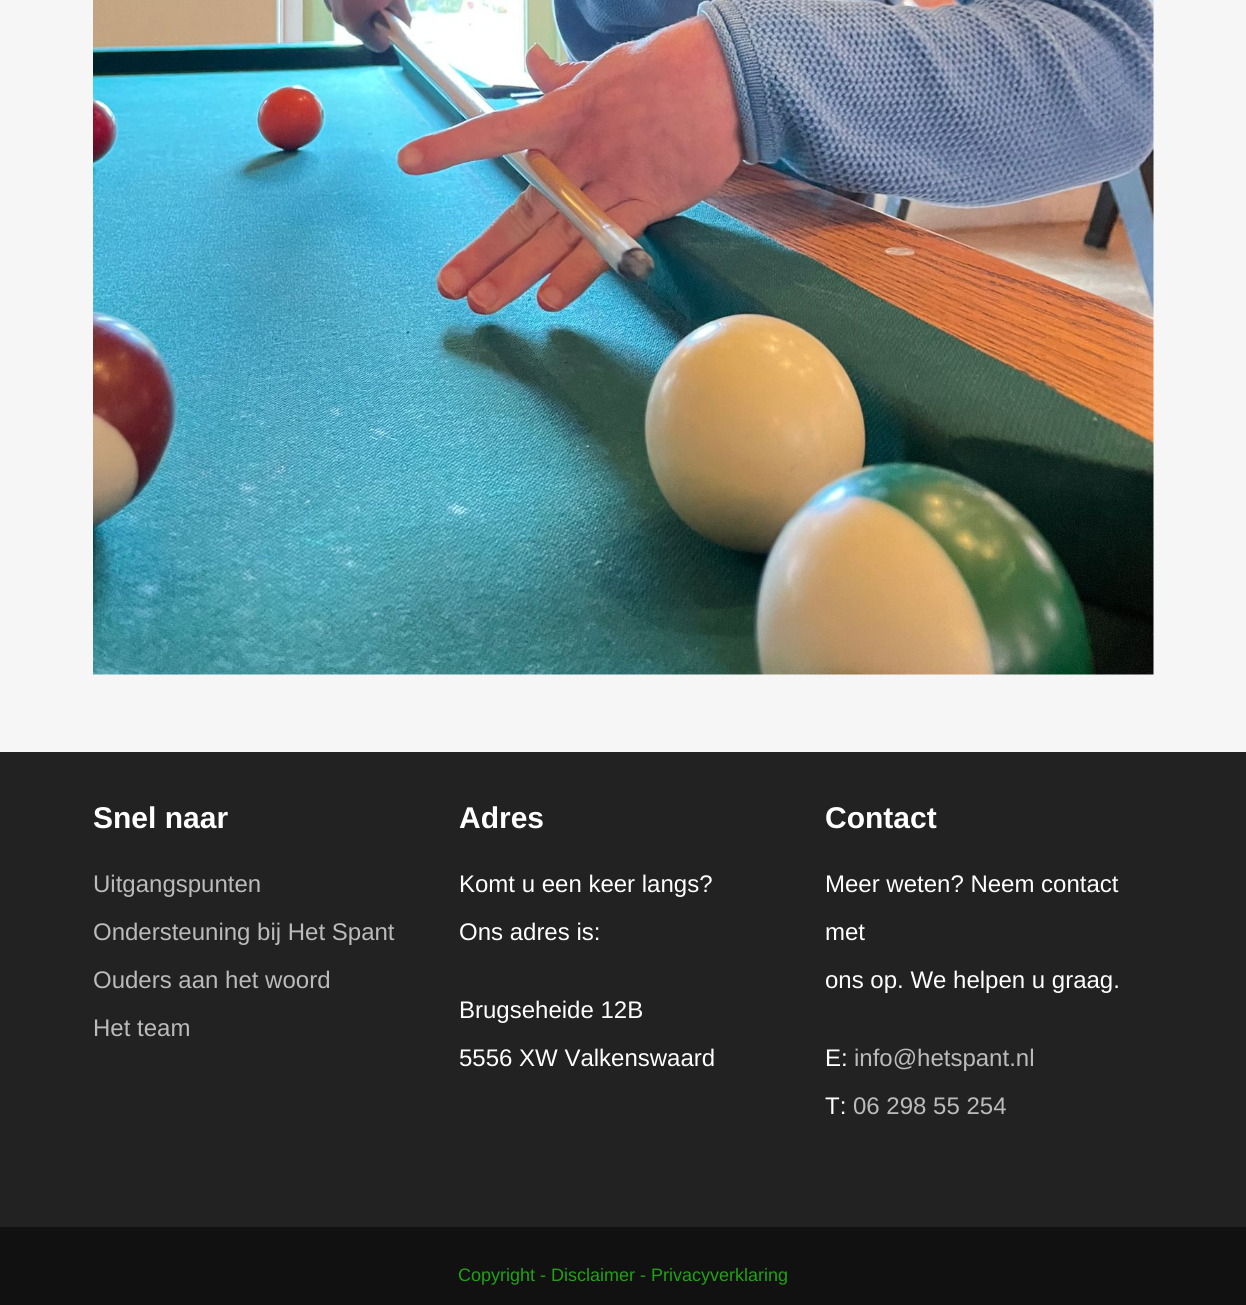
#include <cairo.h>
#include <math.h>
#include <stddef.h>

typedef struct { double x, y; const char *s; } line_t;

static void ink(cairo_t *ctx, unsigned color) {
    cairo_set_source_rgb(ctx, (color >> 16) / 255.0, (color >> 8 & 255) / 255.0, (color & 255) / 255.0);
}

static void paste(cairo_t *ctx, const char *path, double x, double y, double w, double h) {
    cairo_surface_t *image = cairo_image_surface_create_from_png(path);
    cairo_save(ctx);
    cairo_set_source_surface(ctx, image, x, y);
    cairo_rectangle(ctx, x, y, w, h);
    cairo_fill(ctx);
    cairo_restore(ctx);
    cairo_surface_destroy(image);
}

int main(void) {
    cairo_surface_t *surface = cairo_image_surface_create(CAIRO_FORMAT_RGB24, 1246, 1305);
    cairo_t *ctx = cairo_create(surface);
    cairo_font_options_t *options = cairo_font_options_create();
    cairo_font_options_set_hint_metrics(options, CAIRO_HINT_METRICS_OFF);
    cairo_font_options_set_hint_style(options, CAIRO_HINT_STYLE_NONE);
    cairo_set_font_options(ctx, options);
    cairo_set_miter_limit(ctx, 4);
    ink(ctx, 0xF6F6F6);
    cairo_paint(ctx);
    paste(ctx, "media/1.png", 93, 0, 1061, 675);
    ink(ctx, 0x222222);
    cairo_rectangle(ctx, 0, 752, 1246, 475);
    cairo_fill(ctx);
    cairo_select_font_face(ctx, "Liberation Sans", CAIRO_FONT_SLANT_NORMAL, CAIRO_FONT_WEIGHT_BOLD);
    cairo_set_font_size(ctx, 30);
    ink(ctx, 0xFFFFFF);
    cairo_move_to(ctx, 93, 828);
    cairo_show_text(ctx, "Snel naar");
    cairo_select_font_face(ctx, "Liberation Sans", CAIRO_FONT_SLANT_NORMAL, CAIRO_FONT_WEIGHT_NORMAL);
    cairo_set_font_size(ctx, 24);
    ink(ctx, 0xBBBBBB);
    {
        static const line_t items[] = {
            {93, 892, "Uitgangspunten"},
            {93, 940, "Ondersteuning bij Het Spant"},
            {93, 988, "Ouders aan het woord"},
            {93, 1036, "Het team"},
        };
        for (size_t i = 0; i < sizeof items / sizeof *items; i++) {
            cairo_move_to(ctx, items[i].x, items[i].y);
            cairo_show_text(ctx, items[i].s);
        }
    }
    cairo_select_font_face(ctx, "Liberation Sans", CAIRO_FONT_SLANT_NORMAL, CAIRO_FONT_WEIGHT_BOLD);
    cairo_set_font_size(ctx, 30);
    ink(ctx, 0xFFFFFF);
    cairo_move_to(ctx, 459, 828);
    cairo_show_text(ctx, "Adres");
    cairo_select_font_face(ctx, "Liberation Sans", CAIRO_FONT_SLANT_NORMAL, CAIRO_FONT_WEIGHT_NORMAL);
    cairo_set_font_size(ctx, 24);
    {
        static const line_t items[] = {
            {459, 892, "Komt u een keer langs?"},
            {459, 940, "Ons adres is:"},
            {459, 1018, "Brugseheide 12B"},
            {459, 1066, "5556 XW Valkenswaard"},
        };
        for (size_t i = 0; i < sizeof items / sizeof *items; i++) {
            cairo_move_to(ctx, items[i].x, items[i].y);
            cairo_show_text(ctx, items[i].s);
        }
    }
    cairo_select_font_face(ctx, "Liberation Sans", CAIRO_FONT_SLANT_NORMAL, CAIRO_FONT_WEIGHT_BOLD);
    cairo_set_font_size(ctx, 30);
    cairo_move_to(ctx, 825, 828);
    cairo_show_text(ctx, "Contact");
    cairo_select_font_face(ctx, "Liberation Sans", CAIRO_FONT_SLANT_NORMAL, CAIRO_FONT_WEIGHT_NORMAL);
    cairo_set_font_size(ctx, 24);
    {
        static const line_t items[] = {
            {825, 892, "Meer weten? Neem contact"},
            {825, 940, "met"},
            {825, 988, "ons op. We helpen u graag."},
            {825, 1066, "E:"},
        };
        for (size_t i = 0; i < sizeof items / sizeof *items; i++) {
            cairo_move_to(ctx, items[i].x, items[i].y);
            cairo_show_text(ctx, items[i].s);
        }
    }
    ink(ctx, 0xBBBBBB);
    cairo_move_to(ctx, 854, 1066);
    cairo_show_text(ctx, "info@hetspant.nl");
    ink(ctx, 0xFFFFFF);
    cairo_move_to(ctx, 825, 1114);
    cairo_show_text(ctx, "T:");
    ink(ctx, 0xBBBBBB);
    cairo_move_to(ctx, 853, 1114);
    cairo_show_text(ctx, "06 298 55 254");
    ink(ctx, 0x111111);
    cairo_rectangle(ctx, 0, 1227, 1246, 78);
    cairo_fill(ctx);
    cairo_set_font_size(ctx, 18);
    ink(ctx, 0x21A214);
    cairo_move_to(ctx, 458, 1281);
    cairo_show_text(ctx, "Copyright - Disclaimer - Privacyverklaring");
    cairo_surface_write_to_png(surface, "image.png");
    cairo_font_options_destroy(options);
    cairo_destroy(ctx);
    cairo_surface_destroy(surface);
    return 0;
}
